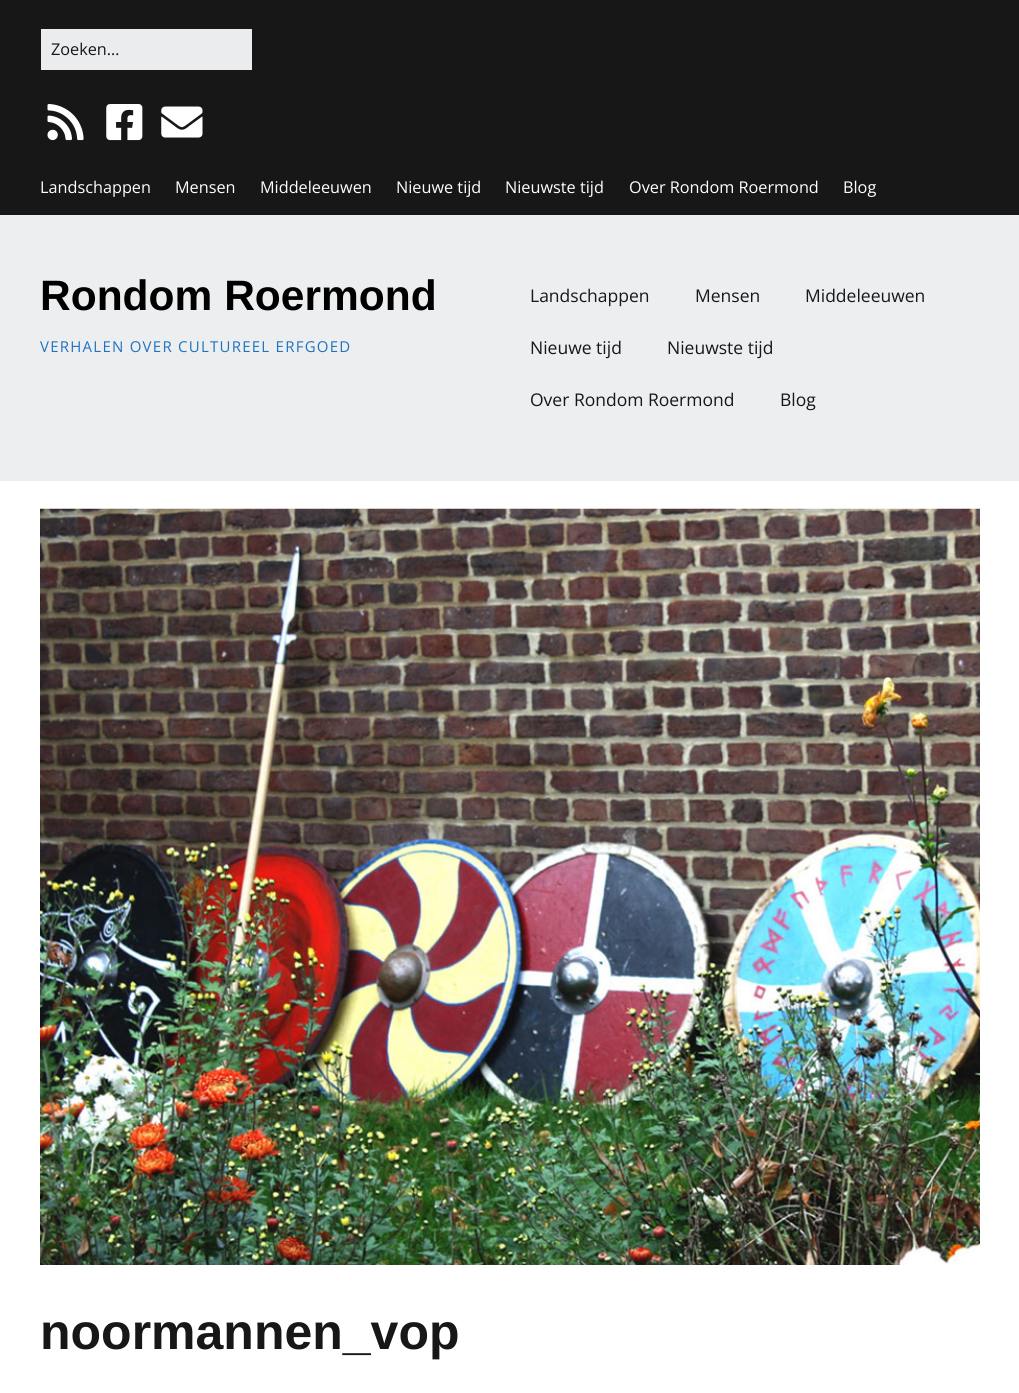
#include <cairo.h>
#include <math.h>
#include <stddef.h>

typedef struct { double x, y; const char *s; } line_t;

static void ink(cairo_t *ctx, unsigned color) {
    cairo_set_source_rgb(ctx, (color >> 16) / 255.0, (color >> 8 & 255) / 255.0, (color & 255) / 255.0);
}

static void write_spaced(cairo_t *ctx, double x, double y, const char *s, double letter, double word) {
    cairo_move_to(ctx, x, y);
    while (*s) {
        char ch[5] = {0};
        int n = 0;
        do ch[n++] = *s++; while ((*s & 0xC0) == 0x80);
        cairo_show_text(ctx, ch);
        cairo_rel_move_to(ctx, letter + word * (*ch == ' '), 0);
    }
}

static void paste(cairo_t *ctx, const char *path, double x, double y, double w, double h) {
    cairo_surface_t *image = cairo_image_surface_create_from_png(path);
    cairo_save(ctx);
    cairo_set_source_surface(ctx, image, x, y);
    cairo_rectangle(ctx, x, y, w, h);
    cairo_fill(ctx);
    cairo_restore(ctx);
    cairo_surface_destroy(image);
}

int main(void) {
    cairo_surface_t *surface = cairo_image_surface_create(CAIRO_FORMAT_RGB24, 1019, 1393);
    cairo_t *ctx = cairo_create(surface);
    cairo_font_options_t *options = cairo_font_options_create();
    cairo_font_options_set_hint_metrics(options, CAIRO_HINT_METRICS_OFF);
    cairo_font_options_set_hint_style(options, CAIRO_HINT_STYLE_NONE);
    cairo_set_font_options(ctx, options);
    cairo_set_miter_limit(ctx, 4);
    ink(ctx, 0x171717);
    cairo_paint(ctx);
    ink(ctx, 0xEAECEE);
    cairo_rectangle(ctx, 41, 29, 211, 41);
    cairo_fill(ctx);
    cairo_select_font_face(ctx, "Open Sans", CAIRO_FONT_SLANT_NORMAL, CAIRO_FONT_WEIGHT_NORMAL);
    cairo_set_font_size(ctx, 16.25);
    ink(ctx, 0x171717);
    cairo_move_to(ctx, 51, 55);
    cairo_show_text(ctx, "Zoeken…");
    paste(ctx, "media/1.png", 47, 104, 37, 37);
    paste(ctx, "media/2.png", 106, 104, 37, 37);
    paste(ctx, "media/3.png", 161, 106, 42, 32);
    ink(ctx, 0xFFFFFF);
    {
        static const line_t items[] = {
            {40, 193, "Landschappen"},
            {175, 193, "Mensen"},
            {260, 193, "Middeleeuwen"},
            {396, 193, "Nieuwe tijd"},
            {505, 193, "Nieuwste tijd"},
            {629, 193, "Over Rondom Roermond"},
            {843, 193, "Blog"},
        };
        for (size_t i = 0; i < sizeof items / sizeof *items; i++) {
            cairo_move_to(ctx, items[i].x, items[i].y);
            cairo_show_text(ctx, items[i].s);
        }
    }
    ink(ctx, 0xEDEEEF);
    cairo_rectangle(ctx, 0, 215, 1019, 266);
    cairo_fill(ctx);
    cairo_select_font_face(ctx, "Liberation Sans", CAIRO_FONT_SLANT_NORMAL, CAIRO_FONT_WEIGHT_BOLD);
    cairo_set_font_size(ctx, 42.5);
    ink(ctx, 0x000000);
    cairo_move_to(ctx, 40, 310);
    cairo_show_text(ctx, "Rondom Roermond");
    cairo_select_font_face(ctx, "Open Sans", CAIRO_FONT_SLANT_NORMAL, CAIRO_FONT_WEIGHT_NORMAL);
    cairo_set_font_size(ctx, 15);
    ink(ctx, 0x1E73BE);
    write_spaced(ctx, 40, 352, "VERHALEN OVER CULTUREEL ERFGOED", 1.25, 0);
    cairo_set_font_size(ctx, 17.5);
    ink(ctx, 0x171717);
    {
        static const line_t items[] = {
            {530, 302, "Landschappen"},
            {695, 302, "Mensen"},
            {805, 302, "Middeleeuwen"},
            {530, 354, "Nieuwe tijd"},
            {667, 354, "Nieuwste tijd"},
            {530, 406, "Over Rondom Roermond"},
            {780, 406, "Blog"},
        };
        for (size_t i = 0; i < sizeof items / sizeof *items; i++) {
            cairo_move_to(ctx, items[i].x, items[i].y);
            cairo_show_text(ctx, items[i].s);
        }
    }
    ink(ctx, 0xFFFFFF);
    cairo_rectangle(ctx, 0, 481, 1019, 912);
    cairo_fill(ctx);
    paste(ctx, "media/4.png", 40, 508, 940, 757);
    cairo_select_font_face(ctx, "Liberation Sans", CAIRO_FONT_SLANT_NORMAL, CAIRO_FONT_WEIGHT_BOLD);
    cairo_set_font_size(ctx, 50);
    ink(ctx, 0x171717);
    cairo_move_to(ctx, 40, 1349);
    cairo_show_text(ctx, "noormannen_vop");
    cairo_surface_write_to_png(surface, "image.png");
    cairo_font_options_destroy(options);
    cairo_destroy(ctx);
    cairo_surface_destroy(surface);
    return 0;
}
